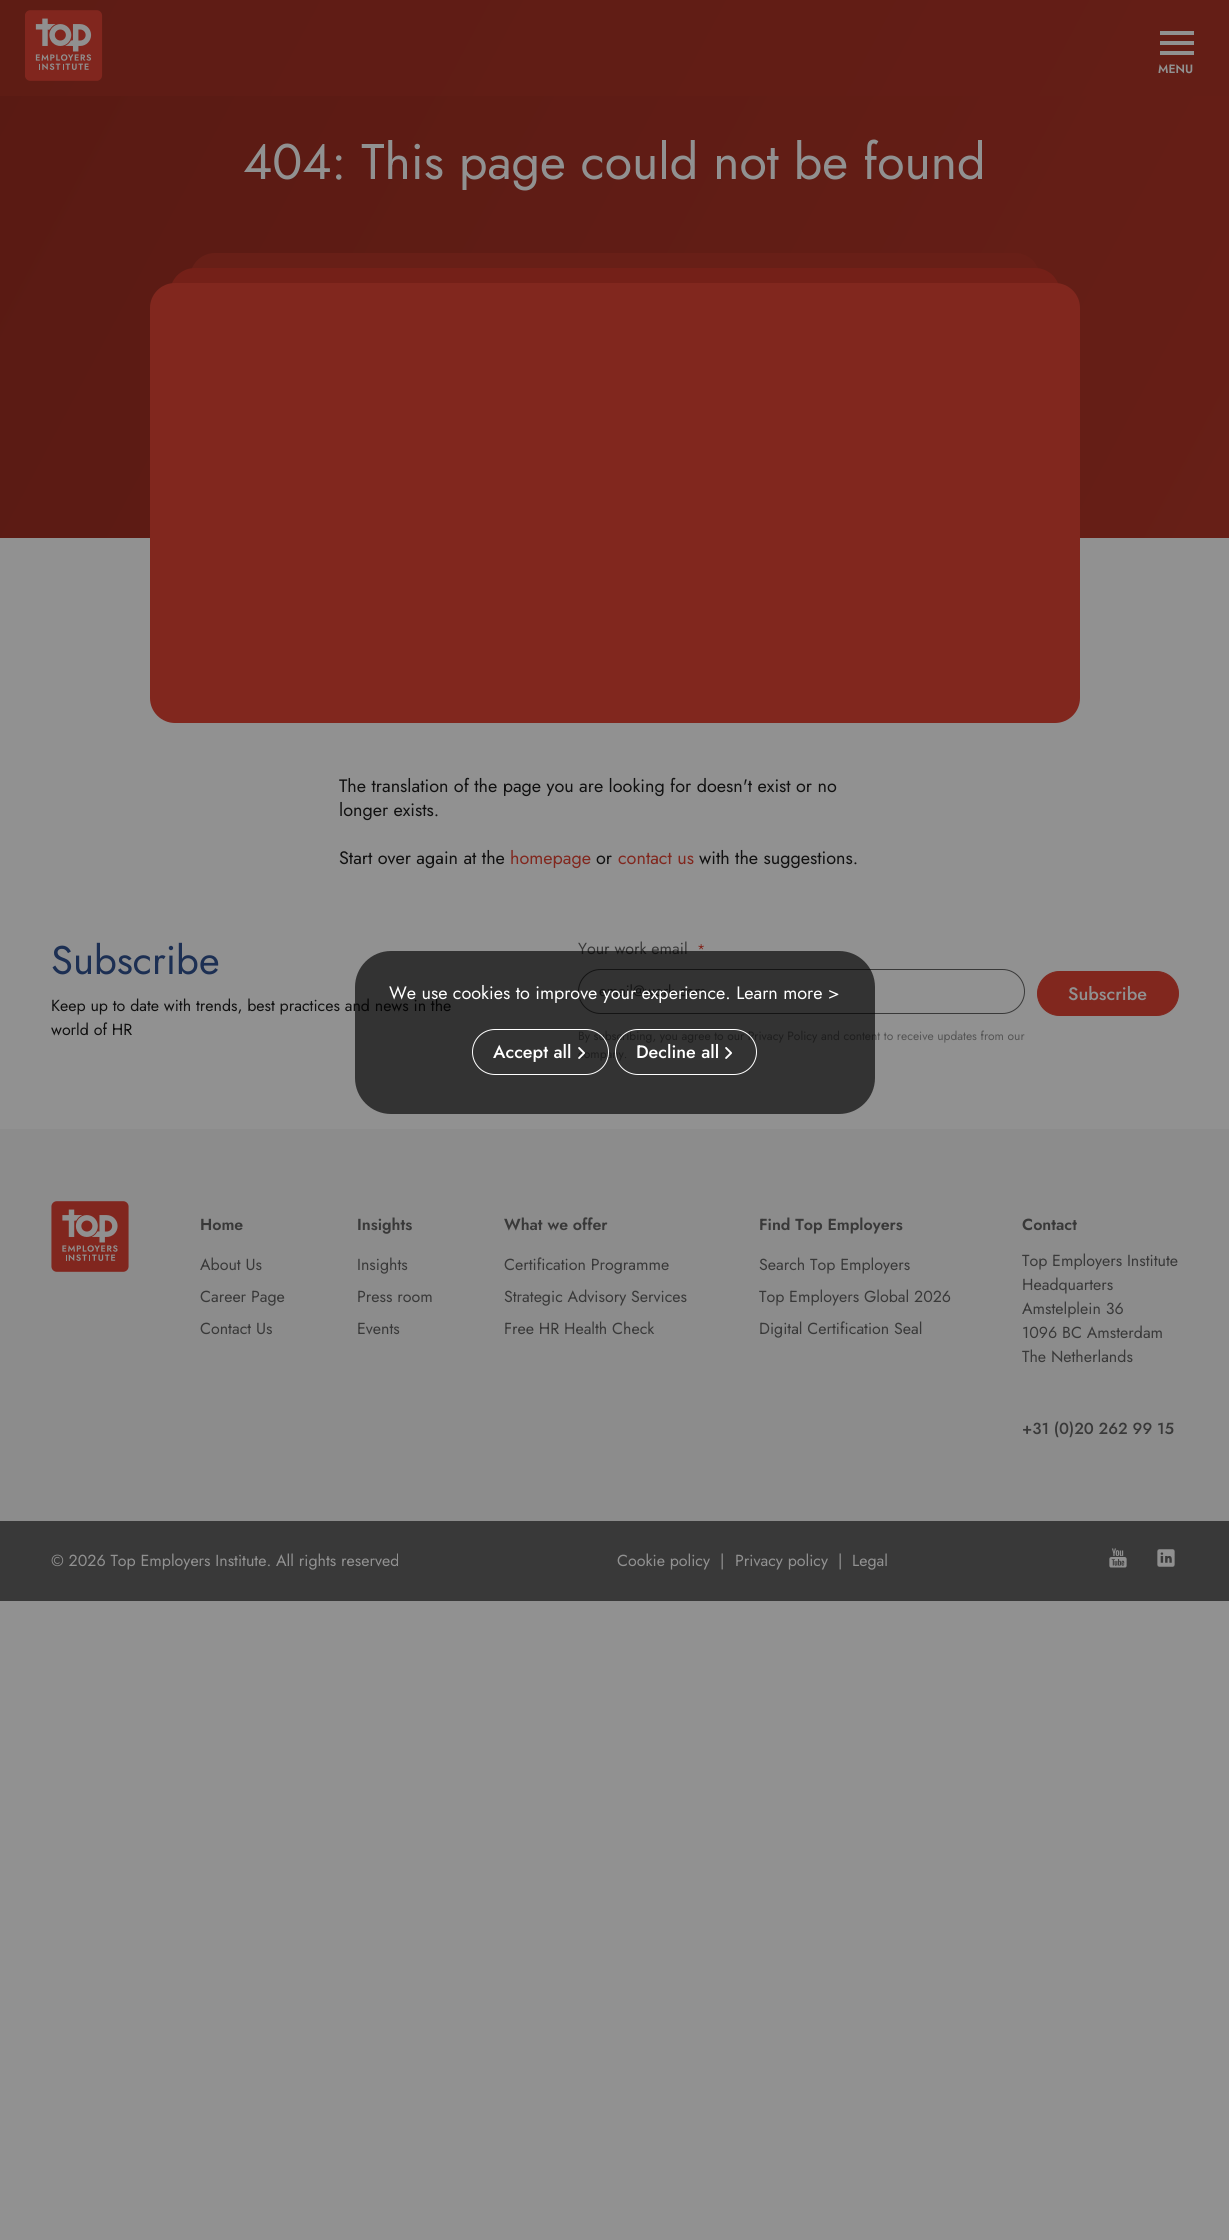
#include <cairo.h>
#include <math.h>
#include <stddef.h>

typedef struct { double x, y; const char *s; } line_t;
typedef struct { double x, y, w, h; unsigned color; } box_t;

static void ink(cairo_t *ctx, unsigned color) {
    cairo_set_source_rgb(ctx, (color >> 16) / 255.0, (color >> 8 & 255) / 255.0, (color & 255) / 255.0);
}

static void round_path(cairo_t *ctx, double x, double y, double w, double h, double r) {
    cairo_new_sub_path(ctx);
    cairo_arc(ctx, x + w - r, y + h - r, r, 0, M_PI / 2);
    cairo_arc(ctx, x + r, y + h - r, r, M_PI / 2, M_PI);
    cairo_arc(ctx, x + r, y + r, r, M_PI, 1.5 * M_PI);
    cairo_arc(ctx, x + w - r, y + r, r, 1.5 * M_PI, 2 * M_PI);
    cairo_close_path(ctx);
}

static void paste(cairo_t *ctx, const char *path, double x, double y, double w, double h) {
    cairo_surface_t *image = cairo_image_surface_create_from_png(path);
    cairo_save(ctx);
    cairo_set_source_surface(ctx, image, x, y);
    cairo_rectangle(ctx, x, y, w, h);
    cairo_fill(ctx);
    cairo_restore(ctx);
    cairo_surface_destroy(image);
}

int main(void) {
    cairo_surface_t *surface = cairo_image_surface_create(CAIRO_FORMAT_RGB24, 1229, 2240);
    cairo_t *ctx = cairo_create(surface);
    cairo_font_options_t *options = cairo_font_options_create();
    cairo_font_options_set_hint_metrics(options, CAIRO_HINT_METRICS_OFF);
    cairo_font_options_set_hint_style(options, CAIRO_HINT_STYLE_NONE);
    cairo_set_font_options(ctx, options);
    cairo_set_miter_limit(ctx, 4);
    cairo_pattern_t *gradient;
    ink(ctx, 0x919191);
    cairo_paint(ctx);
    gradient = cairo_pattern_create_linear(-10, 55, 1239, 719);
    cairo_pattern_add_color_stop_rgba(gradient, 0, 0.349, 0.102, 0.075, 1);
    cairo_pattern_add_color_stop_rgba(gradient, 1, 0.408, 0.122, 0.09, 1);
    cairo_set_source(ctx, gradient);
    cairo_pattern_destroy(gradient);
    cairo_rectangle(ctx, 0, 96, 1229, 442);
    cairo_fill(ctx);
    gradient = cairo_pattern_create_linear(-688, -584, 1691, 680);
    cairo_pattern_add_color_stop_rgba(gradient, 0, 0.349, 0.102, 0.075, 1);
    cairo_pattern_add_color_stop_rgba(gradient, 1, 0.408, 0.122, 0.09, 1);
    cairo_set_source(ctx, gradient);
    cairo_pattern_destroy(gradient);
    cairo_rectangle(ctx, 0, 0, 1229, 96);
    cairo_fill(ctx);
    paste(ctx, "media/1.png", 25, 10, 78, 71);
    {
        static const box_t items[] = {
            {1160, 31, 34, 4, 0x919191},
            {1160, 41, 34, 4, 0x919191},
            {1160, 51, 34, 4, 0x919191},
        };
        for (size_t i = 0; i < sizeof items / sizeof *items; i++) {
            ink(ctx, items[i].color);
            cairo_rectangle(ctx, items[i].x, items[i].y, items[i].w, items[i].h);
            cairo_fill(ctx);
        }
    }
    cairo_select_font_face(ctx, "Jost SemiBold", CAIRO_FONT_SLANT_NORMAL, CAIRO_FONT_WEIGHT_NORMAL);
    cairo_set_font_size(ctx, 12);
    cairo_move_to(ctx, 1158, 73);
    cairo_show_text(ctx, "MENU");
    cairo_select_font_face(ctx, "Jost", CAIRO_FONT_SLANT_NORMAL, CAIRO_FONT_WEIGHT_NORMAL);
    cairo_set_font_size(ctx, 50);
    cairo_move_to(ctx, 243, 179);
    cairo_show_text(ctx, "404: This page could not be found");
    ink(ctx, 0x681F17);
    round_path(ctx, 190, 253, 850, 440, 25);
    cairo_fill(ctx);
    ink(ctx, 0x742018);
    round_path(ctx, 170, 268, 890, 440, 25);
    cairo_fill(ctx);
    ink(ctx, 0x81271E);
    round_path(ctx, 150, 283, 930, 440, 25);
    cairo_fill(ctx);
    cairo_set_font_size(ctx, 18);
    ink(ctx, 0x111111);
    {
        static const line_t items[] = {
            {339, 792, "The translation of the page you are looking for doesn't exist or no"},
            {339, 816, "longer exists."},
            {339, 864, "Start over again at the"},
        };
        for (size_t i = 0; i < sizeof items / sizeof *items; i++) {
            cairo_move_to(ctx, items[i].x, items[i].y);
            cairo_show_text(ctx, items[i].s);
        }
    }
    ink(ctx, 0x81271E);
    cairo_move_to(ctx, 510, 864);
    cairo_show_text(ctx, "homepage");
    ink(ctx, 0x111111);
    cairo_move_to(ctx, 596, 864);
    cairo_show_text(ctx, "or");
    ink(ctx, 0x81271E);
    cairo_move_to(ctx, 618, 864);
    cairo_show_text(ctx, "contact us");
    ink(ctx, 0x111111);
    cairo_move_to(ctx, 699, 864);
    cairo_show_text(ctx, "with the suggestions.");
    cairo_set_font_size(ctx, 40);
    ink(ctx, 0x1C2F53);
    cairo_move_to(ctx, 51, 974);
    cairo_show_text(ctx, "Subscribe");
    cairo_set_font_size(ctx, 16);
    ink(ctx, 0x111111);
    cairo_move_to(ctx, 51, 1011);
    cairo_show_text(ctx, "Keep up to date with trends, best practices and news in the");
    cairo_move_to(ctx, 51, 1035);
    cairo_show_text(ctx, "world of HR");
    ink(ctx, 0x393939);
    cairo_move_to(ctx, 578, 954);
    cairo_show_text(ctx, "Your work email");
    cairo_set_font_size(ctx, 14);
    ink(ctx, 0x81271E);
    cairo_move_to(ctx, 697, 954);
    cairo_show_text(ctx, "*");
    round_path(ctx, 578.5, 969.5, 446, 44, 22);
    ink(ctx, 0x393939);
    cairo_set_line_width(ctx, 1);
    cairo_stroke(ctx);
    cairo_set_font_size(ctx, 15);
    cairo_move_to(ctx, 599, 996);
    cairo_show_text(ctx, "email@work.com");
    cairo_set_font_size(ctx, 12);
    ink(ctx, 0x555555);
    cairo_move_to(ctx, 578, 1040);
    cairo_show_text(ctx, "By subscribing, you agree to our Privacy Policy and content to receive updates from our");
    cairo_move_to(ctx, 578, 1058);
    cairo_show_text(ctx, "company.");
    ink(ctx, 0x81271E);
    round_path(ctx, 1037.5, 971.5, 141, 44, 22);
    cairo_fill_preserve(ctx);
    cairo_stroke(ctx);
    cairo_select_font_face(ctx, "Jost Medium", CAIRO_FONT_SLANT_NORMAL, CAIRO_FONT_WEIGHT_NORMAL);
    cairo_set_font_size(ctx, 18);
    ink(ctx, 0x919191);
    cairo_move_to(ctx, 1068, 1000);
    cairo_show_text(ctx, "Subscribe");
    cairo_set_source_rgba(ctx, 0, 0, 0, 0.65);
    round_path(ctx, 355, 951, 520, 163, 36);
    cairo_fill(ctx);
    cairo_select_font_face(ctx, "Jost", CAIRO_FONT_SLANT_NORMAL, CAIRO_FONT_WEIGHT_NORMAL);
    ink(ctx, 0xFFFFFF);
    cairo_move_to(ctx, 389, 999);
    cairo_show_text(ctx, "We use cookies to improve your experience. Learn more >");
    round_path(ctx, 472.5, 1029.5, 136, 45, 22.5);
    cairo_stroke(ctx);
    cairo_select_font_face(ctx, "Jost Medium", CAIRO_FONT_SLANT_NORMAL, CAIRO_FONT_WEIGHT_NORMAL);
    cairo_move_to(ctx, 493, 1058);
    cairo_show_text(ctx, "Accept all");
    paste(ctx, "media/2.png", 578, 1047, 7, 12);
    round_path(ctx, 615.5, 1029.5, 141, 45, 22.5);
    cairo_stroke(ctx);
    cairo_move_to(ctx, 636, 1058);
    cairo_show_text(ctx, "Decline all");
    paste(ctx, "media/3.png", 725, 1047, 7, 12);
    ink(ctx, 0x8C8C8C);
    cairo_rectangle(ctx, 0, 1129, 1229, 392);
    cairo_fill(ctx);
    paste(ctx, "media/4.png", 51, 1201, 78, 71);
    cairo_select_font_face(ctx, "Jost SemiBold", CAIRO_FONT_SLANT_NORMAL, CAIRO_FONT_WEIGHT_NORMAL);
    cairo_set_font_size(ctx, 16);
    ink(ctx, 0x393939);
    cairo_move_to(ctx, 200, 1230);
    cairo_show_text(ctx, "Home");
    cairo_select_font_face(ctx, "Jost", CAIRO_FONT_SLANT_NORMAL, CAIRO_FONT_WEIGHT_NORMAL);
    {
        static const line_t items[] = {
            {200, 1270, "About Us"},
            {200, 1302, "Career Page"},
            {200, 1334, "Contact Us"},
        };
        for (size_t i = 0; i < sizeof items / sizeof *items; i++) {
            cairo_move_to(ctx, items[i].x, items[i].y);
            cairo_show_text(ctx, items[i].s);
        }
    }
    cairo_select_font_face(ctx, "Jost SemiBold", CAIRO_FONT_SLANT_NORMAL, CAIRO_FONT_WEIGHT_NORMAL);
    cairo_move_to(ctx, 357, 1230);
    cairo_show_text(ctx, "Insights");
    cairo_select_font_face(ctx, "Jost", CAIRO_FONT_SLANT_NORMAL, CAIRO_FONT_WEIGHT_NORMAL);
    {
        static const line_t items[] = {
            {357, 1270, "Insights"},
            {357, 1302, "Press room"},
            {357, 1334, "Events"},
        };
        for (size_t i = 0; i < sizeof items / sizeof *items; i++) {
            cairo_move_to(ctx, items[i].x, items[i].y);
            cairo_show_text(ctx, items[i].s);
        }
    }
    cairo_select_font_face(ctx, "Jost SemiBold", CAIRO_FONT_SLANT_NORMAL, CAIRO_FONT_WEIGHT_NORMAL);
    cairo_move_to(ctx, 504, 1230);
    cairo_show_text(ctx, "What we offer");
    cairo_select_font_face(ctx, "Jost", CAIRO_FONT_SLANT_NORMAL, CAIRO_FONT_WEIGHT_NORMAL);
    {
        static const line_t items[] = {
            {504, 1270, "Certification Programme"},
            {504, 1302, "Strategic Advisory Services"},
            {504, 1334, "Free HR Health Check"},
        };
        for (size_t i = 0; i < sizeof items / sizeof *items; i++) {
            cairo_move_to(ctx, items[i].x, items[i].y);
            cairo_show_text(ctx, items[i].s);
        }
    }
    cairo_select_font_face(ctx, "Jost SemiBold", CAIRO_FONT_SLANT_NORMAL, CAIRO_FONT_WEIGHT_NORMAL);
    cairo_move_to(ctx, 759, 1230);
    cairo_show_text(ctx, "Find Top Employers");
    cairo_select_font_face(ctx, "Jost", CAIRO_FONT_SLANT_NORMAL, CAIRO_FONT_WEIGHT_NORMAL);
    {
        static const line_t items[] = {
            {759, 1270, "Search Top Employers"},
            {759, 1302, "Top Employers Global 2026"},
            {759, 1334, "Digital Certification Seal"},
        };
        for (size_t i = 0; i < sizeof items / sizeof *items; i++) {
            cairo_move_to(ctx, items[i].x, items[i].y);
            cairo_show_text(ctx, items[i].s);
        }
    }
    cairo_select_font_face(ctx, "Jost SemiBold", CAIRO_FONT_SLANT_NORMAL, CAIRO_FONT_WEIGHT_NORMAL);
    cairo_move_to(ctx, 1022, 1230);
    cairo_show_text(ctx, "Contact");
    cairo_select_font_face(ctx, "Jost", CAIRO_FONT_SLANT_NORMAL, CAIRO_FONT_WEIGHT_NORMAL);
    {
        static const line_t items[] = {
            {1022, 1266, "Top Employers Institute"},
            {1022, 1290, "Headquarters"},
            {1022, 1314, "Amstelplein 36"},
            {1022, 1338, "1096 BC Amsterdam"},
            {1022, 1362, "The Netherlands"},
        };
        for (size_t i = 0; i < sizeof items / sizeof *items; i++) {
            cairo_move_to(ctx, items[i].x, items[i].y);
            cairo_show_text(ctx, items[i].s);
        }
    }
    cairo_select_font_face(ctx, "Jost Medium", CAIRO_FONT_SLANT_NORMAL, CAIRO_FONT_WEIGHT_NORMAL);
    cairo_move_to(ctx, 1022, 1434);
    cairo_show_text(ctx, "+31 (0)20 262 99 15");
    cairo_rectangle(ctx, 0, 1521, 1229, 80);
    cairo_fill(ctx);
    cairo_select_font_face(ctx, "Jost", CAIRO_FONT_SLANT_NORMAL, CAIRO_FONT_WEIGHT_NORMAL);
    ink(ctx, 0x919191);
    {
        static const line_t items[] = {
            {51, 1566, "© 2026 Top Employers Institute. All rights reserved"},
            {617, 1566, "Cookie policy"},
            {720, 1566, "|"},
            {735, 1566, "Privacy policy"},
            {838, 1566, "|"},
            {852, 1566, "Legal"},
        };
        for (size_t i = 0; i < sizeof items / sizeof *items; i++) {
            cairo_move_to(ctx, items[i].x, items[i].y);
            cairo_show_text(ctx, items[i].s);
        }
    }
    paste(ctx, "media/5.png", 1109, 1548, 18, 20);
    paste(ctx, "media/6.png", 1157, 1549, 18, 18);
    cairo_surface_write_to_png(surface, "image.png");
    cairo_font_options_destroy(options);
    cairo_destroy(ctx);
    cairo_surface_destroy(surface);
    return 0;
}
